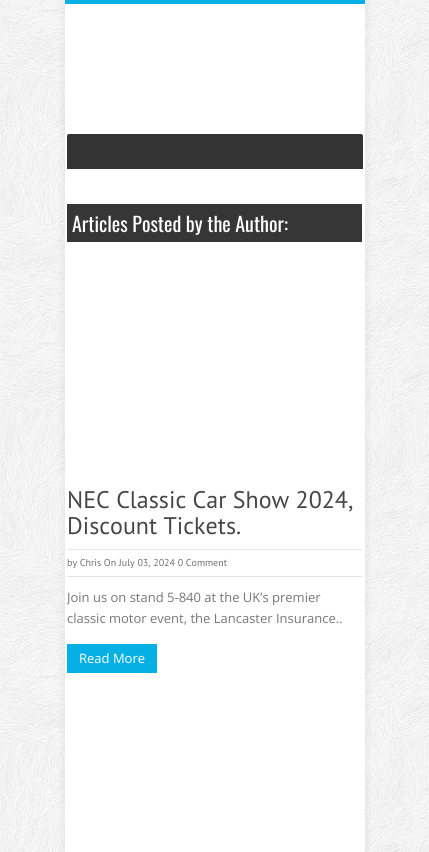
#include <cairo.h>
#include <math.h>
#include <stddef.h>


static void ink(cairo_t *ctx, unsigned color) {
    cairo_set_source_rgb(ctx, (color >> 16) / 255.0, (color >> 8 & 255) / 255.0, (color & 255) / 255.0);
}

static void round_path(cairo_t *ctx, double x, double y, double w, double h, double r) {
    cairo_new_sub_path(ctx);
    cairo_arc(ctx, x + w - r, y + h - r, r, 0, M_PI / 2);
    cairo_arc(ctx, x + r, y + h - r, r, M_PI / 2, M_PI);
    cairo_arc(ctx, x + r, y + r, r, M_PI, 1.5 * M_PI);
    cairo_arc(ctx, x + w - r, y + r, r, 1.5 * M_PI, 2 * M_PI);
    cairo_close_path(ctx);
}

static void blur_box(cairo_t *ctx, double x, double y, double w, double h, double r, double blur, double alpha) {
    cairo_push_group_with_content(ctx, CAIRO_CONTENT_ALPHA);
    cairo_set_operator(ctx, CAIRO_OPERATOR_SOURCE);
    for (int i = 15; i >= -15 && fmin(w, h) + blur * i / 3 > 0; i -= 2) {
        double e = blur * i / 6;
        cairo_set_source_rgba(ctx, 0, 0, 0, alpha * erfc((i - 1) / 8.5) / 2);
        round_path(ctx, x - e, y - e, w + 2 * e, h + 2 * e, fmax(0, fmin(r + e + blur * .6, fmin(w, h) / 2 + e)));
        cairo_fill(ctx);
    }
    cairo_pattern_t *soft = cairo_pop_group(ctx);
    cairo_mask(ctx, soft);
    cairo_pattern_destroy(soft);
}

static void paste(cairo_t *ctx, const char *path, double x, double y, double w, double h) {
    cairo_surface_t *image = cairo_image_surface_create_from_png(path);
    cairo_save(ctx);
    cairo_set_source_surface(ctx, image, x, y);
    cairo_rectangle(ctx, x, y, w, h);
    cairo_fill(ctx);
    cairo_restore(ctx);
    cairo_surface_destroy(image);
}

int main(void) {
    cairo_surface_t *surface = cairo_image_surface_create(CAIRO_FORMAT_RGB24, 429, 852);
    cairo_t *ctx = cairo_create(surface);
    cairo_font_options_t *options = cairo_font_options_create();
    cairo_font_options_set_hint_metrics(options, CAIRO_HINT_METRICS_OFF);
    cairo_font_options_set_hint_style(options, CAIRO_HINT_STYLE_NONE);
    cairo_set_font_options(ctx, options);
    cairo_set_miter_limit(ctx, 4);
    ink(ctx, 0xFFFFFF);
    cairo_paint(ctx);
    paste(ctx, "media/1.png", 0, 0, 429, 852);
    ink(ctx, 0x000000);
    blur_box(ctx, 65, 4, 300, 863, 0, 5, 0.08);
    ink(ctx, 0xFFFFFF);
    cairo_rectangle(ctx, 65, 4, 300, 848);
    cairo_fill(ctx);
    ink(ctx, 0x06AFE4);
    cairo_rectangle(ctx, 65, 0, 300, 4);
    cairo_fill(ctx);
    ink(ctx, 0x333333);
    cairo_new_path(ctx);
    cairo_move_to(ctx, 69, 134);
    cairo_line_to(ctx, 361, 134);
    cairo_curve_to(ctx, 362, 134, 363, 135, 363, 136);
    cairo_line_to(ctx, 363, 169);
    cairo_line_to(ctx, 67, 169);
    cairo_line_to(ctx, 67, 136);
    cairo_curve_to(ctx, 67, 135, 68, 134, 69, 134);
    cairo_close_path(ctx);
    cairo_fill(ctx);
    ink(ctx, 0x363636);
    cairo_rectangle(ctx, 67, 204, 295, 38);
    cairo_fill(ctx);
    cairo_select_font_face(ctx, "Oswald", CAIRO_FONT_SLANT_NORMAL, CAIRO_FONT_WEIGHT_NORMAL);
    cairo_set_font_size(ctx, 20);
    ink(ctx, 0xFFFFFF);
    cairo_move_to(ctx, 72, 232);
    cairo_show_text(ctx, "Articles Posted by the Author:");
    cairo_select_font_face(ctx, "PT Sans", CAIRO_FONT_SLANT_NORMAL, CAIRO_FONT_WEIGHT_NORMAL);
    cairo_set_font_size(ctx, 24);
    ink(ctx, 0x464646);
    cairo_move_to(ctx, 67, 508);
    cairo_show_text(ctx, "NEC Classic Car Show 2024,");
    cairo_move_to(ctx, 67, 534);
    cairo_show_text(ctx, "Discount Tickets.");
    ink(ctx, 0xE4E4E4);
    cairo_rectangle(ctx, 67, 549, 295, 1);
    cairo_fill(ctx);
    cairo_rectangle(ctx, 67, 576, 295, 1);
    cairo_fill(ctx);
    cairo_set_font_size(ctx, 10);
    ink(ctx, 0x707070);
    cairo_move_to(ctx, 67, 566);
    cairo_show_text(ctx, "by Chris On July 03, 2024 0 Comment");
    cairo_save(ctx);
    cairo_rectangle(ctx, 67, 4, 296, 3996);
    cairo_clip(ctx);
    cairo_select_font_face(ctx, "Open Sans", CAIRO_FONT_SLANT_NORMAL, CAIRO_FONT_WEIGHT_NORMAL);
    cairo_set_font_size(ctx, 13);
    ink(ctx, 0x777777);
    cairo_move_to(ctx, 67, 602);
    cairo_show_text(ctx, "Join us on stand 5-840 at the UK’s premier");
    cairo_restore(ctx);
    cairo_select_font_face(ctx, "Open Sans", CAIRO_FONT_SLANT_NORMAL, CAIRO_FONT_WEIGHT_NORMAL);
    cairo_set_font_size(ctx, 13);
    ink(ctx, 0x777777);
    cairo_move_to(ctx, 67, 623);
    cairo_show_text(ctx, "classic motor event, the Lancaster Insurance..");
    ink(ctx, 0x06AFE4);
    cairo_rectangle(ctx, 67, 644, 90, 29);
    cairo_fill(ctx);
    ink(ctx, 0xFFFFFF);
    cairo_move_to(ctx, 79, 663);
    cairo_show_text(ctx, "Read More");
    cairo_surface_write_to_png(surface, "image.png");
    cairo_font_options_destroy(options);
    cairo_destroy(ctx);
    cairo_surface_destroy(surface);
    return 0;
}
